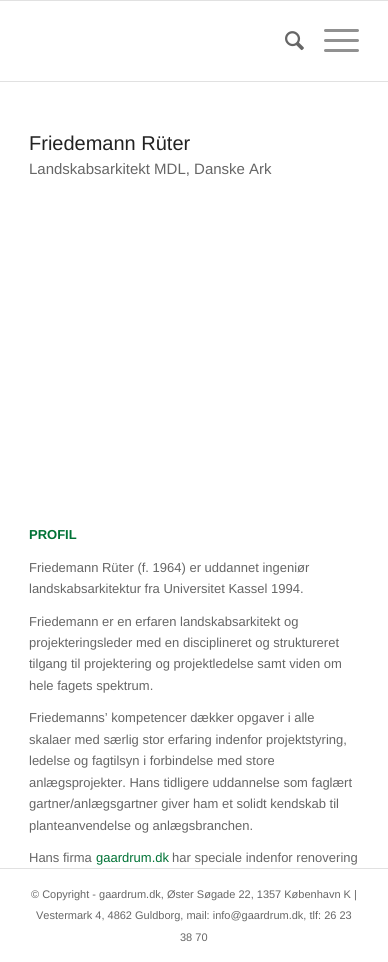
#include <cairo.h>
#include <math.h>
#include <stddef.h>

typedef struct { double x, y; const char *s; } line_t;

static void ink(cairo_t *ctx, unsigned color) {
    cairo_set_source_rgb(ctx, (color >> 16) / 255.0, (color >> 8 & 255) / 255.0, (color & 255) / 255.0);
}

static void round_path(cairo_t *ctx, double x, double y, double w, double h, double r) {
    cairo_new_sub_path(ctx);
    cairo_arc(ctx, x + w - r, y + h - r, r, 0, M_PI / 2);
    cairo_arc(ctx, x + r, y + h - r, r, M_PI / 2, M_PI);
    cairo_arc(ctx, x + r, y + r, r, M_PI, 1.5 * M_PI);
    cairo_arc(ctx, x + w - r, y + r, r, 1.5 * M_PI, 2 * M_PI);
    cairo_close_path(ctx);
}

static void paste(cairo_t *ctx, const char *path, double x, double y, double w, double h) {
    cairo_surface_t *image = cairo_image_surface_create_from_png(path);
    cairo_save(ctx);
    cairo_set_source_surface(ctx, image, x, y);
    cairo_rectangle(ctx, x, y, w, h);
    cairo_fill(ctx);
    cairo_restore(ctx);
    cairo_surface_destroy(image);
}

int main(void) {
    cairo_surface_t *surface = cairo_image_surface_create(CAIRO_FORMAT_RGB24, 388, 962);
    cairo_t *ctx = cairo_create(surface);
    cairo_font_options_t *options = cairo_font_options_create();
    cairo_font_options_set_hint_metrics(options, CAIRO_HINT_METRICS_OFF);
    cairo_font_options_set_hint_style(options, CAIRO_HINT_STYLE_NONE);
    cairo_set_font_options(ctx, options);
    cairo_set_miter_limit(ctx, 4);
    ink(ctx, 0xFFFFFF);
    cairo_paint(ctx);
    ink(ctx, 0xE1E1E1);
    cairo_rectangle(ctx, 0, 0, 388, 1);
    cairo_fill(ctx);
    cairo_rectangle(ctx, 0, 81, 388, 1);
    cairo_fill(ctx);
    paste(ctx, "media/1.png", 285, 31, 19, 20);
    ink(ctx, 0x919191);
    round_path(ctx, 324, 39, 35, 3, 1.5);
    cairo_fill(ctx);
    round_path(ctx, 324, 29, 35, 3, 1.5);
    cairo_fill(ctx);
    round_path(ctx, 324, 49, 35, 3, 1.5);
    cairo_fill(ctx);
    cairo_select_font_face(ctx, "Liberation Sans", CAIRO_FONT_SLANT_NORMAL, CAIRO_FONT_WEIGHT_NORMAL);
    cairo_set_font_size(ctx, 20);
    ink(ctx, 0x222222);
    cairo_move_to(ctx, 29, 150);
    cairo_show_text(ctx, "Friedemann Rüter");
    cairo_set_font_size(ctx, 15);
    ink(ctx, 0x666666);
    cairo_move_to(ctx, 29, 174);
    cairo_show_text(ctx, "Landskabsarkitekt MDL, Danske Ark");
    cairo_select_font_face(ctx, "Liberation Sans", CAIRO_FONT_SLANT_NORMAL, CAIRO_FONT_WEIGHT_BOLD);
    cairo_set_font_size(ctx, 13);
    ink(ctx, 0x007235);
    cairo_move_to(ctx, 29, 539);
    cairo_show_text(ctx, "PROFIL");
    cairo_select_font_face(ctx, "Liberation Sans", CAIRO_FONT_SLANT_NORMAL, CAIRO_FONT_WEIGHT_NORMAL);
    ink(ctx, 0x666666);
    {
        static const line_t items[] = {
            {29, 572, "Friedemann Rüter (f. 1964) er uddannet ingeniør"},
            {29, 593, "landskabsarkitektur fra Universitet Kassel 1994."},
            {29, 626, "Friedemann er en erfaren landskabsarkitekt og"},
            {29, 647, "projekteringsleder med en disciplineret og struktureret"},
            {29, 668, "tilgang til projektering og projektledelse samt viden om"},
            {29, 690, "hele fagets spektrum."},
            {29, 722, "Friedemanns’ kompetencer dækker opgaver i alle"},
            {29, 744, "skalaer med særlig stor erfaring indenfor projektstyring,"},
            {29, 765, "ledelse og fagtilsyn i forbindelse med store"},
            {29, 787, "anlægsprojekter. Hans tidligere uddannelse som faglært"},
            {29, 808, "gartner/anlægsgartner giver ham et solidt kendskab til"},
            {29, 830, "planteanvendelse og anlægsbranchen."},
            {29, 862, "Hans firma"},
        };
        for (size_t i = 0; i < sizeof items / sizeof *items; i++) {
            cairo_move_to(ctx, items[i].x, items[i].y);
            cairo_show_text(ctx, items[i].s);
        }
    }
    ink(ctx, 0x007235);
    cairo_move_to(ctx, 96, 862);
    cairo_show_text(ctx, "gaardrum.dk");
    ink(ctx, 0x666666);
    cairo_move_to(ctx, 172, 862);
    cairo_show_text(ctx, "har speciale indenfor renovering");
    ink(ctx, 0xE1E1E1);
    cairo_rectangle(ctx, 0, 868, 388, 1);
    cairo_fill(ctx);
    cairo_set_font_size(ctx, 11);
    ink(ctx, 0x666666);
    {
        static const line_t items[] = {
            {31, 898, "© Copyright - gaardrum.dk, Øster Søgade 22, 1357 København K |"},
            {36, 919, "Vestermark 4, 4862 Guldborg, mail: info@gaardrum.dk, tlf: 26 23"},
            {180, 941, "38 70"},
        };
        for (size_t i = 0; i < sizeof items / sizeof *items; i++) {
            cairo_move_to(ctx, items[i].x, items[i].y);
            cairo_show_text(ctx, items[i].s);
        }
    }
    cairo_surface_write_to_png(surface, "image.png");
    cairo_font_options_destroy(options);
    cairo_destroy(ctx);
    cairo_surface_destroy(surface);
    return 0;
}
